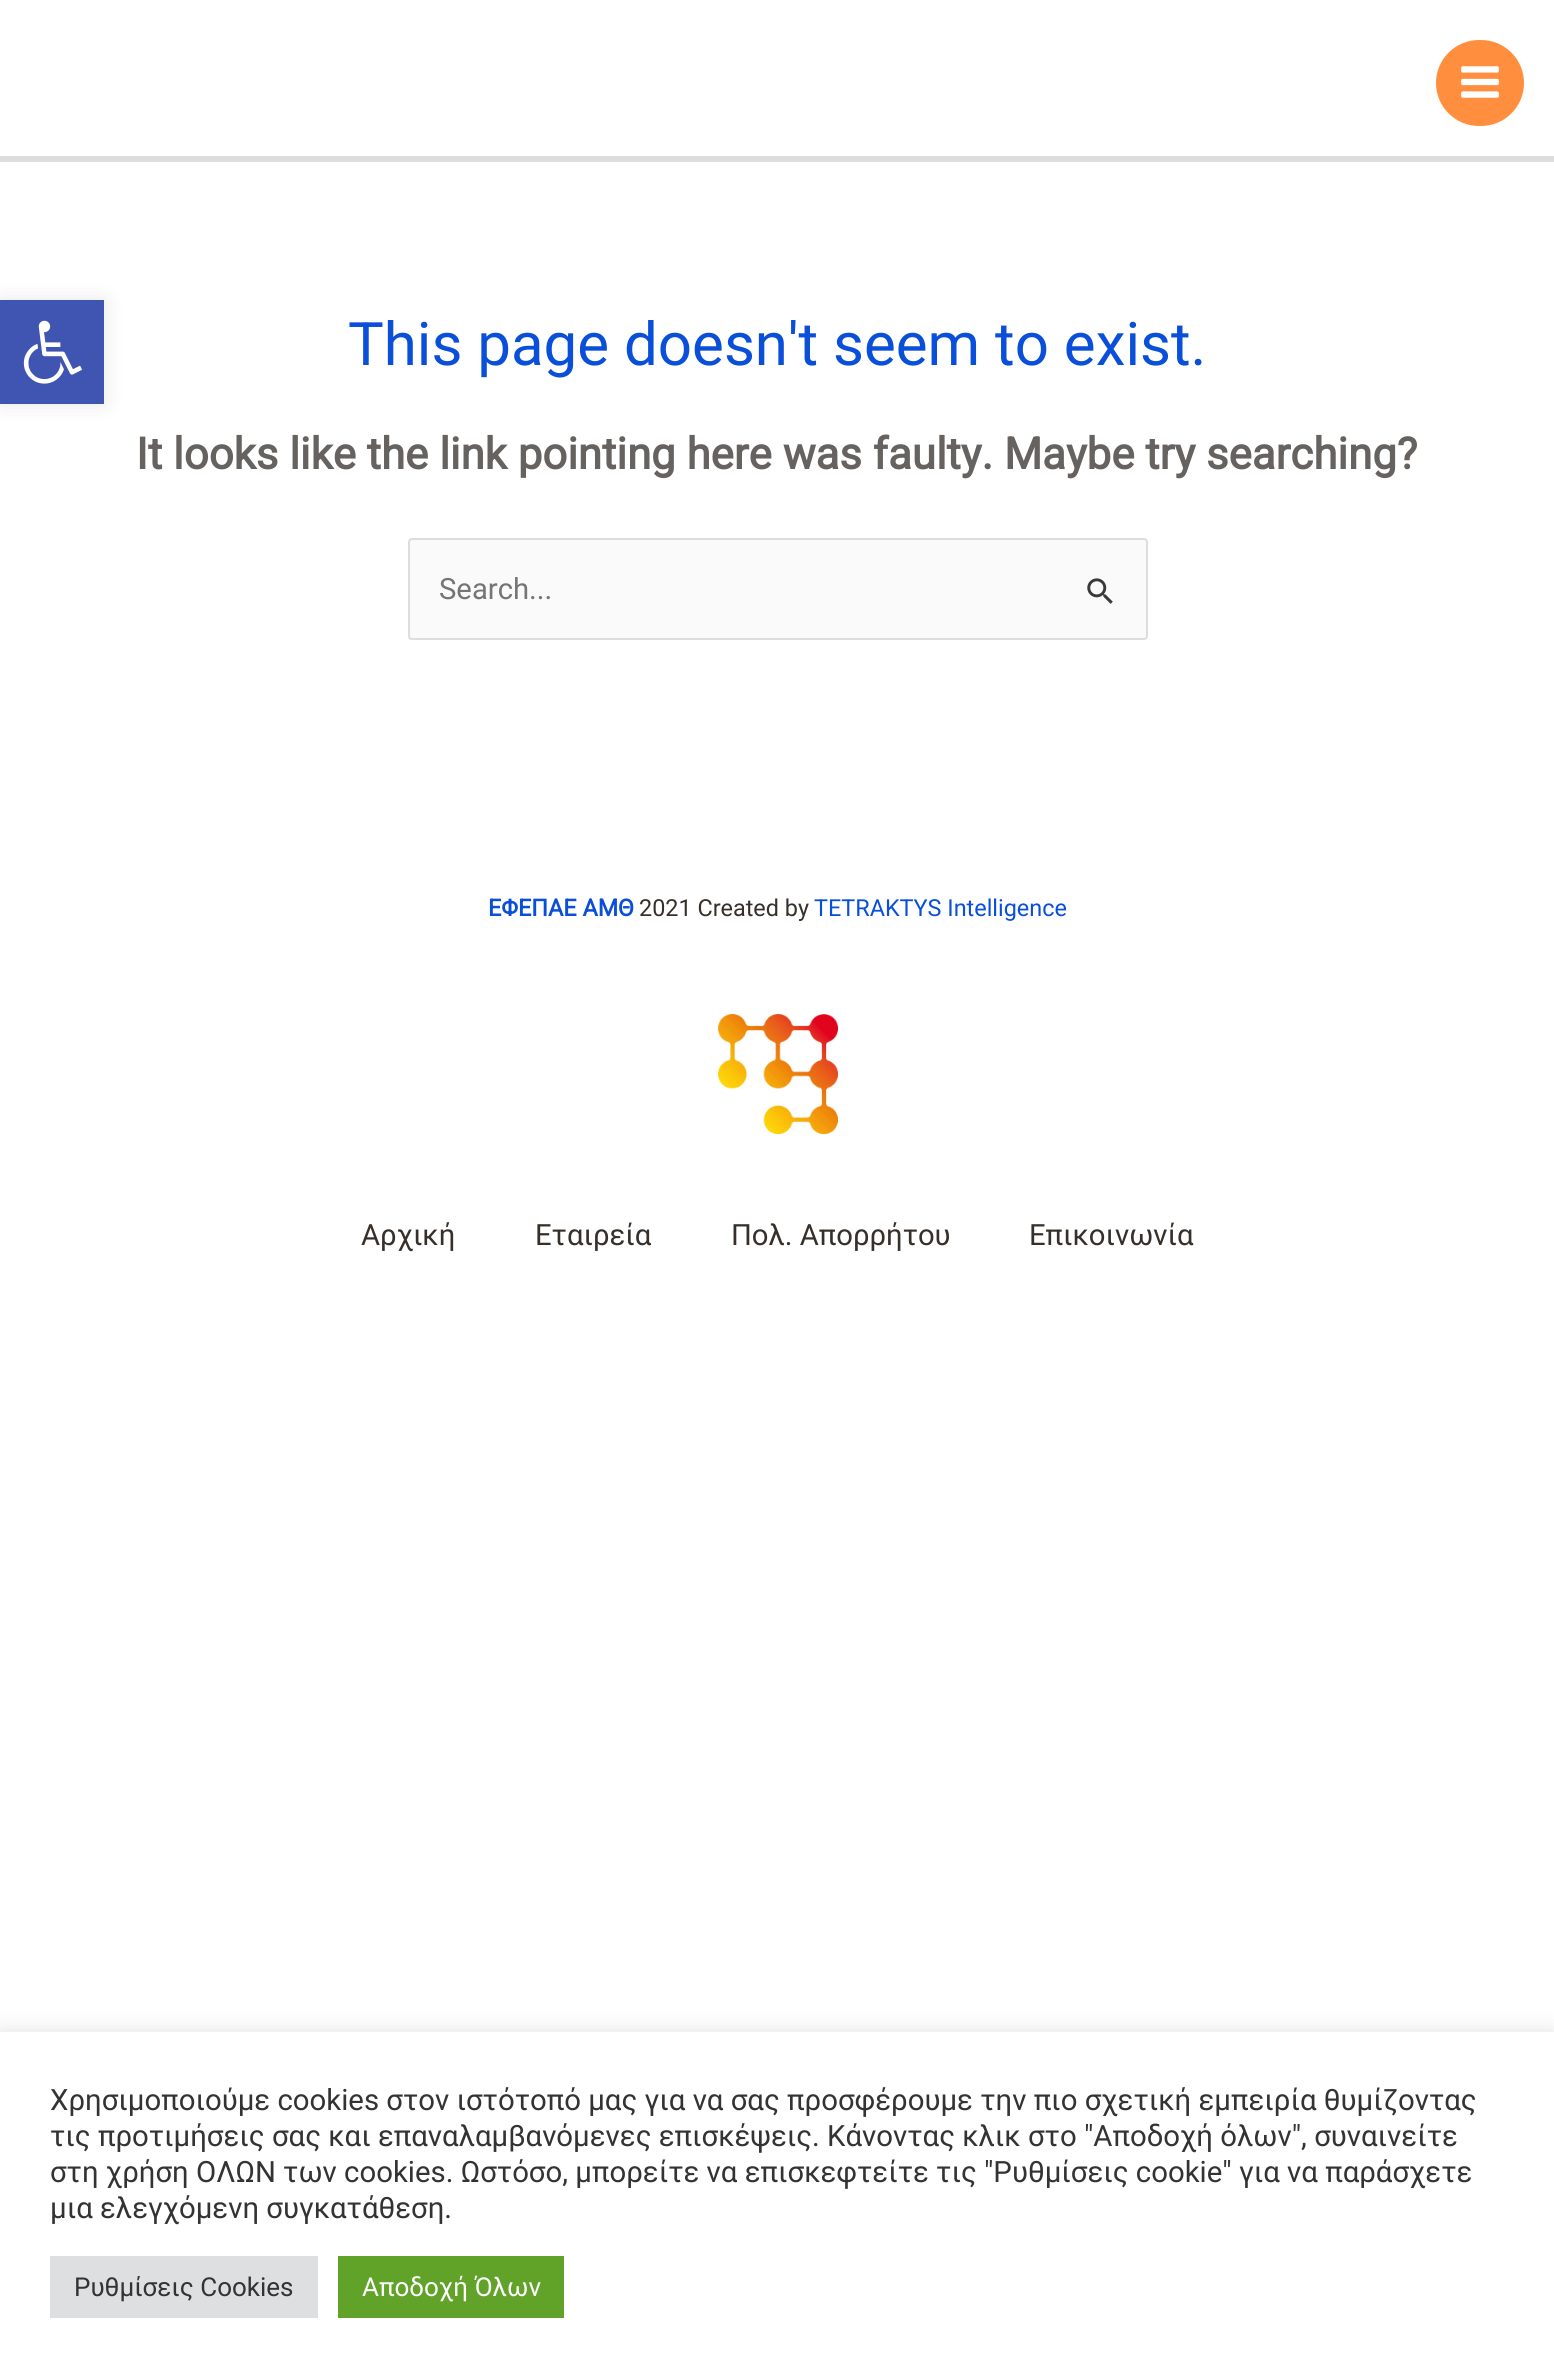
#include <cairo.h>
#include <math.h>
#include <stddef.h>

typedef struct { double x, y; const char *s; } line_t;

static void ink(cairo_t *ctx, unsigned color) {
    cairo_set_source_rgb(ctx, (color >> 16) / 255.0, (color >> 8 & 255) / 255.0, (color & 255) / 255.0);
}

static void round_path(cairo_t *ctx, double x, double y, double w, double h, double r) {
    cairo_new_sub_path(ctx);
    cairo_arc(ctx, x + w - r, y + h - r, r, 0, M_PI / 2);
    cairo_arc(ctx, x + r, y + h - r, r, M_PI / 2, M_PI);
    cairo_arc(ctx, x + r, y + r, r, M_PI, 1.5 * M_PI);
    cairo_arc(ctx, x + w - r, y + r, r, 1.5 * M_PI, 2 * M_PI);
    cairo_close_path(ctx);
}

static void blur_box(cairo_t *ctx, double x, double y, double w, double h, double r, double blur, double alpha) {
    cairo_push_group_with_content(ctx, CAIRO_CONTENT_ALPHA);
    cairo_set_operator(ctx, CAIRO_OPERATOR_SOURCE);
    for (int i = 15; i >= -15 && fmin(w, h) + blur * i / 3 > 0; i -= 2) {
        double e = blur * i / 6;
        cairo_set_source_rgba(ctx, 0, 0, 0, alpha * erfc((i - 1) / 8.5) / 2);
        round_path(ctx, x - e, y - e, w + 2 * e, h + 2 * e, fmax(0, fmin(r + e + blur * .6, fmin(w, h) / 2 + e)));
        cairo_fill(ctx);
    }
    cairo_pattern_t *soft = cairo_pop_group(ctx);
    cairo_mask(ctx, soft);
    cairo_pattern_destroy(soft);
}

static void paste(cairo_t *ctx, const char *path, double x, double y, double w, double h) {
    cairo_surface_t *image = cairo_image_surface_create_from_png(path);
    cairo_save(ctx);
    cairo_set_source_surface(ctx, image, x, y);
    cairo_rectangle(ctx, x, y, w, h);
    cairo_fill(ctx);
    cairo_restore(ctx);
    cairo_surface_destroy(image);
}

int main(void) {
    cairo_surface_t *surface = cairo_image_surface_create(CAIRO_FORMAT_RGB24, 1554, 2377);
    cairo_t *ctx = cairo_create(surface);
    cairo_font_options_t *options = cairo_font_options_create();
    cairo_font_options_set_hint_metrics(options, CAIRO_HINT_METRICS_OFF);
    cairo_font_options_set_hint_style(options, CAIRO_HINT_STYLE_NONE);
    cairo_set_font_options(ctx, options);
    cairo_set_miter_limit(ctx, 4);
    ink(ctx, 0xFFFFFF);
    cairo_paint(ctx);
    ink(ctx, 0x000000);
    blur_box(ctx, 0, 300, 104, 104, 0, 10, 0.1);
    ink(ctx, 0x4054B2);
    cairo_rectangle(ctx, 0, 300, 104, 104);
    cairo_fill(ctx);
    paste(ctx, "media/1.png", 23, 320, 59, 64);
    ink(ctx, 0xDDDDDD);
    cairo_rectangle(ctx, 0, 156, 1554, 6);
    cairo_fill(ctx);
    ink(ctx, 0xFF8F3F);
    round_path(ctx, 1436, 40, 88, 86, 43);
    cairo_fill(ctx);
    paste(ctx, "media/2.png", 1461, 66, 38, 32);
    cairo_select_font_face(ctx, "Roboto", CAIRO_FONT_SLANT_NORMAL, CAIRO_FONT_WEIGHT_NORMAL);
    cairo_set_font_size(ctx, 60);
    ink(ctx, 0x0A4FD9);
    cairo_move_to(ctx, 348, 365);
    cairo_show_text(ctx, "This page doesn't seem to exist.");
    cairo_select_font_face(ctx, "Roboto", CAIRO_FONT_SLANT_NORMAL, CAIRO_FONT_WEIGHT_BOLD);
    cairo_set_font_size(ctx, 43.75);
    ink(ctx, 0x66625F);
    cairo_move_to(ctx, 136, 469);
    cairo_show_text(ctx, "It looks like the link pointing here was faulty. Maybe try searching?");
    ink(ctx, 0xFAFAFA);
    round_path(ctx, 409, 539, 738, 100, 3);
    cairo_fill_preserve(ctx);
    ink(ctx, 0xDDDDDD);
    cairo_stroke(ctx);
    cairo_select_font_face(ctx, "Roboto", CAIRO_FONT_SLANT_NORMAL, CAIRO_FONT_WEIGHT_NORMAL);
    cairo_set_font_size(ctx, 29.25);
    ink(ctx, 0x757575);
    cairo_move_to(ctx, 439, 599);
    cairo_show_text(ctx, "Search...");
    paste(ctx, "media/3.png", 1087, 578, 26, 26);
    cairo_select_font_face(ctx, "Roboto", CAIRO_FONT_SLANT_NORMAL, CAIRO_FONT_WEIGHT_BOLD);
    cairo_set_font_size(ctx, 23.4);
    ink(ctx, 0x0A4FD9);
    cairo_move_to(ctx, 488, 916);
    cairo_show_text(ctx, "ΕΦΕΠΑΕ ΑΜΘ");
    cairo_select_font_face(ctx, "Roboto", CAIRO_FONT_SLANT_NORMAL, CAIRO_FONT_WEIGHT_NORMAL);
    ink(ctx, 0x37302A);
    cairo_move_to(ctx, 639, 916);
    cairo_show_text(ctx, "2021 Created by");
    ink(ctx, 0x0A4FD9);
    cairo_move_to(ctx, 814, 916);
    cairo_show_text(ctx, "TETRAKTYS Intelligence");
    paste(ctx, "media/4.png", 718, 1014, 120, 120);
    cairo_set_font_size(ctx, 29.25);
    ink(ctx, 0x37302A);
    {
        static const line_t items[] = {
            {361, 1245, "Αρχική"},
            {535, 1245, "Εταιρεία"},
            {731, 1245, "Πολ. Απορρήτου"},
            {1029, 1245, "Επικοινωνία"},
        };
        for (size_t i = 0; i < sizeof items / sizeof *items; i++) {
            cairo_move_to(ctx, items[i].x, items[i].y);
            cairo_show_text(ctx, items[i].s);
        }
    }
    ink(ctx, 0xACABAB);
    blur_box(ctx, 0, 2030, 1554, 346, 0, 10, 0.3);
    ink(ctx, 0xFFFFFF);
    cairo_rectangle(ctx, 0, 2032, 1554, 345);
    cairo_fill(ctx);
    cairo_set_font_size(ctx, 29.35);
    ink(ctx, 0x333333);
    {
        static const line_t items[] = {
            {50, 2110, "Χρησιμοποιούμε cookies στον ιστότοπό μας για να σας προσφέρουμε την πιο σχετική εμπειρία θυμίζοντας"},
            {50, 2146, "τις προτιμήσεις σας και επαναλαμβανόμενες επισκέψεις. Κάνοντας κλικ στο \"Αποδοχή όλων\", συναινείτε"},
            {50, 2182, "στη χρήση ΟΛΩΝ των cookies. Ωστόσο, μπορείτε να επισκεφτείτε τις \"Ρυθμίσεις cookie\" για να παράσχετε"},
            {50, 2218, "μια ελεγχόμενη συγκατάθεση."},
        };
        for (size_t i = 0; i < sizeof items / sizeof *items; i++) {
            cairo_move_to(ctx, items[i].x, items[i].y);
            cairo_show_text(ctx, items[i].s);
        }
    }
    ink(ctx, 0xDEDFE0);
    cairo_rectangle(ctx, 50, 2256, 268, 62);
    cairo_fill(ctx);
    cairo_set_font_size(ctx, 26);
    ink(ctx, 0x333333);
    cairo_move_to(ctx, 74, 2296);
    cairo_show_text(ctx, "Ρυθμίσεις Cookies");
    ink(ctx, 0x61A229);
    cairo_rectangle(ctx, 338, 2256, 226, 62);
    cairo_fill(ctx);
    ink(ctx, 0xFFFFFF);
    cairo_move_to(ctx, 362, 2296);
    cairo_show_text(ctx, "Αποδοχή Όλων");
    cairo_surface_write_to_png(surface, "image.png");
    cairo_font_options_destroy(options);
    cairo_destroy(ctx);
    cairo_surface_destroy(surface);
    return 0;
}
